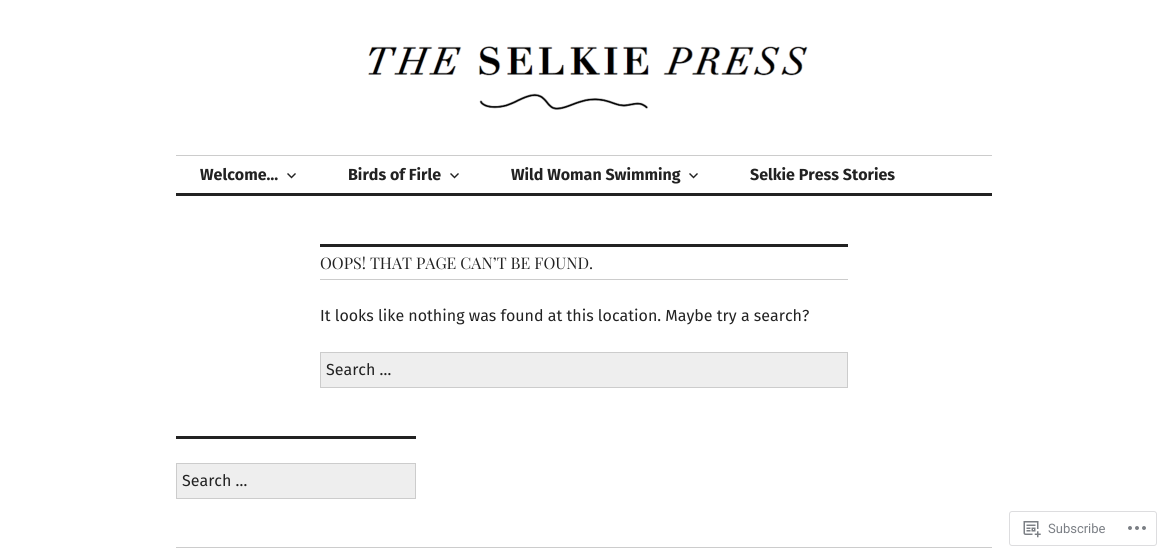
#include <cairo.h>
#include <math.h>
#include <stddef.h>


static void ink(cairo_t *ctx, unsigned color) {
    cairo_set_source_rgb(ctx, (color >> 16) / 255.0, (color >> 8 & 255) / 255.0, (color & 255) / 255.0);
}

static void round_path(cairo_t *ctx, double x, double y, double w, double h, double r) {
    cairo_new_sub_path(ctx);
    cairo_arc(ctx, x + w - r, y + h - r, r, 0, M_PI / 2);
    cairo_arc(ctx, x + r, y + h - r, r, M_PI / 2, M_PI);
    cairo_arc(ctx, x + r, y + r, r, M_PI, 1.5 * M_PI);
    cairo_arc(ctx, x + w - r, y + r, r, 1.5 * M_PI, 2 * M_PI);
    cairo_close_path(ctx);
}

static void paste(cairo_t *ctx, const char *path, double x, double y, double w, double h) {
    cairo_surface_t *image = cairo_image_surface_create_from_png(path);
    cairo_save(ctx);
    cairo_set_source_surface(ctx, image, x, y);
    cairo_rectangle(ctx, x, y, w, h);
    cairo_fill(ctx);
    cairo_restore(ctx);
    cairo_surface_destroy(image);
}

int main(void) {
    cairo_surface_t *surface = cairo_image_surface_create(CAIRO_FORMAT_RGB24, 1167, 556);
    cairo_t *ctx = cairo_create(surface);
    cairo_font_options_t *options = cairo_font_options_create();
    cairo_font_options_set_hint_metrics(options, CAIRO_HINT_METRICS_OFF);
    cairo_font_options_set_hint_style(options, CAIRO_HINT_STYLE_NONE);
    cairo_set_font_options(ctx, options);
    cairo_set_miter_limit(ctx, 4);
    ink(ctx, 0xFFFFFF);
    cairo_paint(ctx);
    paste(ctx, "media/1.png", 368, 46, 440, 64);
    ink(ctx, 0xCCCCCC);
    cairo_rectangle(ctx, 176, 155, 816, 1);
    cairo_fill(ctx);
    ink(ctx, 0x222222);
    cairo_rectangle(ctx, 176, 193, 816, 3);
    cairo_fill(ctx);
    cairo_select_font_face(ctx, "Fira Sans", CAIRO_FONT_SLANT_NORMAL, CAIRO_FONT_WEIGHT_BOLD);
    cairo_set_font_size(ctx, 16);
    cairo_move_to(ctx, 200, 180);
    cairo_show_text(ctx, "Welcome…");
    paste(ctx, "media/2.png", 287, 173, 9, 6);
    cairo_move_to(ctx, 348, 180);
    cairo_show_text(ctx, "Birds of Firle");
    paste(ctx, "media/2.png", 450, 173, 9, 6);
    cairo_move_to(ctx, 511, 180);
    cairo_show_text(ctx, "Wild Woman Swimming");
    paste(ctx, "media/2.png", 689, 173, 9, 6);
    cairo_move_to(ctx, 750, 180);
    cairo_show_text(ctx, "Selkie Press Stories");
    cairo_rectangle(ctx, 320, 244, 528, 3);
    cairo_fill(ctx);
    ink(ctx, 0xCCCCCC);
    cairo_rectangle(ctx, 320, 279, 528, 1);
    cairo_fill(ctx);
    cairo_select_font_face(ctx, "Playfair Display", CAIRO_FONT_SLANT_NORMAL, CAIRO_FONT_WEIGHT_NORMAL);
    ink(ctx, 0x222222);
    cairo_move_to(ctx, 320, 269);
    cairo_show_text(ctx, "OOPS! THAT PAGE CAN’T BE FOUND.");
    cairo_select_font_face(ctx, "Fira Sans", CAIRO_FONT_SLANT_NORMAL, CAIRO_FONT_WEIGHT_NORMAL);
    cairo_move_to(ctx, 320, 321);
    cairo_show_text(ctx, "It looks like nothing was found at this location. Maybe try a search?");
    ink(ctx, 0xEEEEEE);
    cairo_rectangle(ctx, 320.5, 352.5, 527, 35);
    cairo_fill_preserve(ctx);
    ink(ctx, 0xCCCCCC);
    cairo_set_line_width(ctx, 1);
    cairo_stroke(ctx);
    ink(ctx, 0x222222);
    cairo_move_to(ctx, 326, 375);
    cairo_show_text(ctx, "Search …");
    cairo_rectangle(ctx, 176, 436, 240, 3);
    cairo_fill(ctx);
    ink(ctx, 0xEEEEEE);
    cairo_rectangle(ctx, 176.5, 463.5, 239, 35);
    cairo_fill_preserve(ctx);
    ink(ctx, 0xCCCCCC);
    cairo_stroke(ctx);
    ink(ctx, 0x222222);
    cairo_move_to(ctx, 182, 486);
    cairo_show_text(ctx, "Search …");
    ink(ctx, 0xCCCCCC);
    cairo_rectangle(ctx, 176, 547, 816, 1);
    cairo_fill(ctx);
    round_path(ctx, 1009.5, 511.5, 147, 34, 2.5);
    ink(ctx, 0xDDDDDF);
    cairo_stroke(ctx);
    paste(ctx, "media/3.png", 1023, 521, 18, 17);
    cairo_select_font_face(ctx, "Roboto", CAIRO_FONT_SLANT_NORMAL, CAIRO_FONT_WEIGHT_NORMAL);
    cairo_set_font_size(ctx, 13);
    ink(ctx, 0x7B7F85);
    cairo_move_to(ctx, 1048, 533);
    cairo_show_text(ctx, "Subscribe");
    paste(ctx, "media/4.png", 1128, 526, 18, 4);
    cairo_surface_write_to_png(surface, "image.png");
    cairo_font_options_destroy(options);
    cairo_destroy(ctx);
    cairo_surface_destroy(surface);
    return 0;
}
